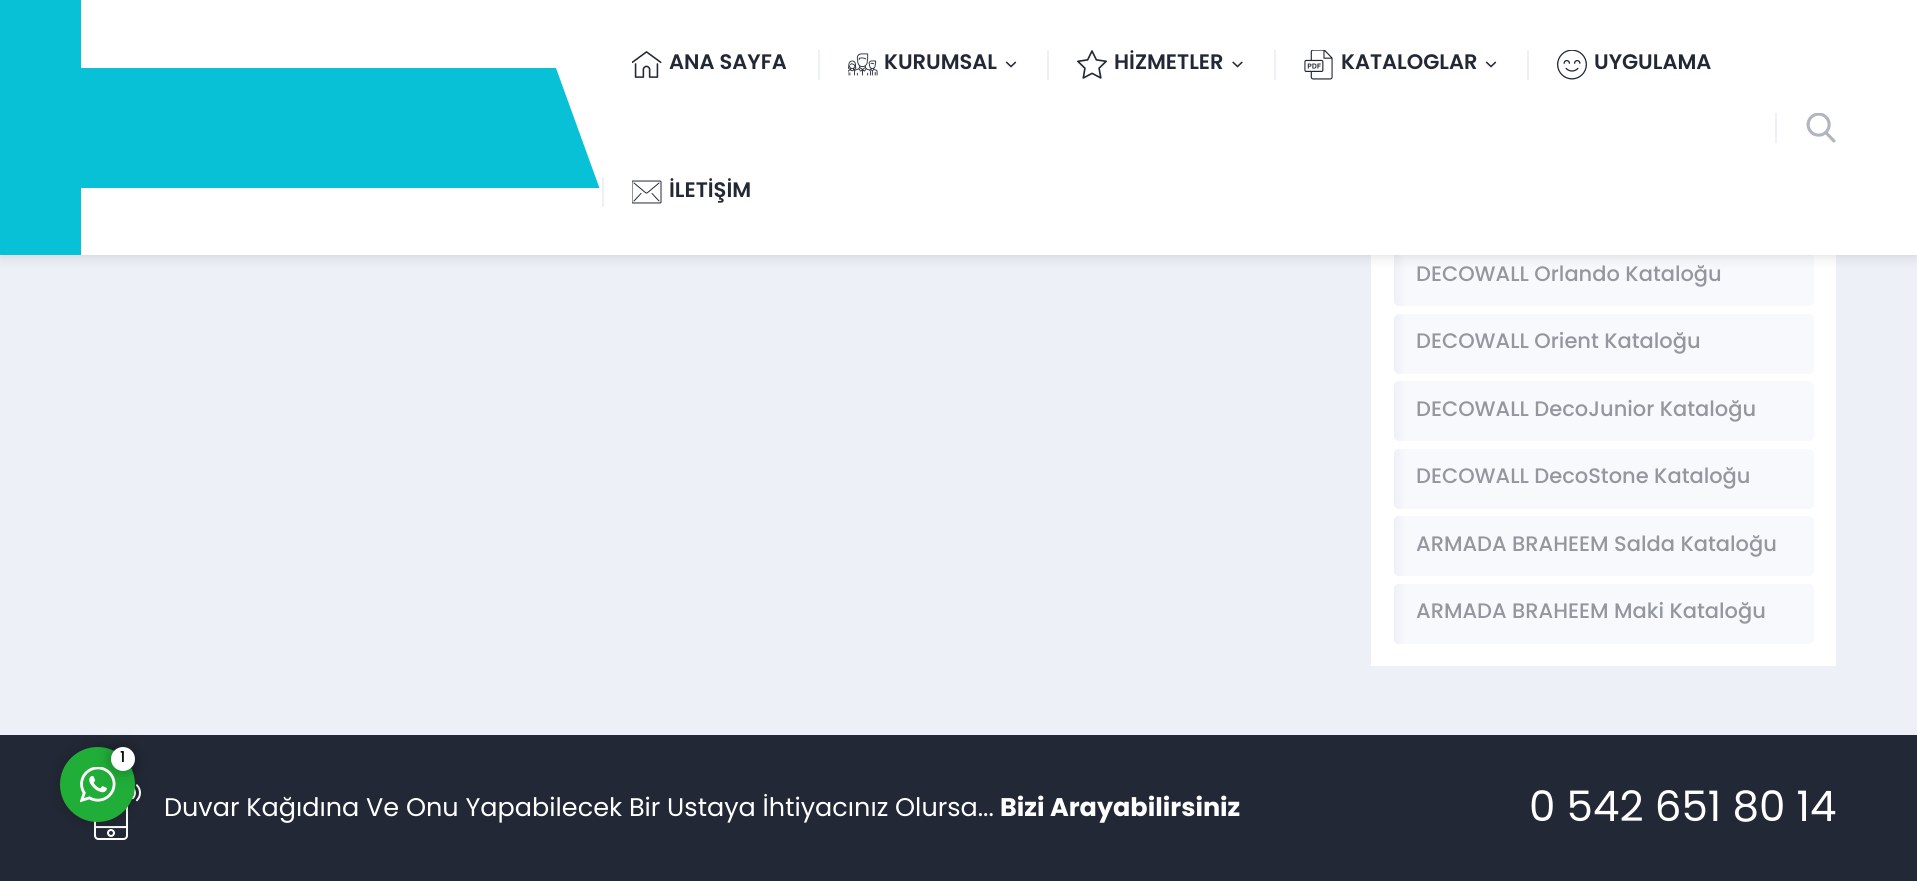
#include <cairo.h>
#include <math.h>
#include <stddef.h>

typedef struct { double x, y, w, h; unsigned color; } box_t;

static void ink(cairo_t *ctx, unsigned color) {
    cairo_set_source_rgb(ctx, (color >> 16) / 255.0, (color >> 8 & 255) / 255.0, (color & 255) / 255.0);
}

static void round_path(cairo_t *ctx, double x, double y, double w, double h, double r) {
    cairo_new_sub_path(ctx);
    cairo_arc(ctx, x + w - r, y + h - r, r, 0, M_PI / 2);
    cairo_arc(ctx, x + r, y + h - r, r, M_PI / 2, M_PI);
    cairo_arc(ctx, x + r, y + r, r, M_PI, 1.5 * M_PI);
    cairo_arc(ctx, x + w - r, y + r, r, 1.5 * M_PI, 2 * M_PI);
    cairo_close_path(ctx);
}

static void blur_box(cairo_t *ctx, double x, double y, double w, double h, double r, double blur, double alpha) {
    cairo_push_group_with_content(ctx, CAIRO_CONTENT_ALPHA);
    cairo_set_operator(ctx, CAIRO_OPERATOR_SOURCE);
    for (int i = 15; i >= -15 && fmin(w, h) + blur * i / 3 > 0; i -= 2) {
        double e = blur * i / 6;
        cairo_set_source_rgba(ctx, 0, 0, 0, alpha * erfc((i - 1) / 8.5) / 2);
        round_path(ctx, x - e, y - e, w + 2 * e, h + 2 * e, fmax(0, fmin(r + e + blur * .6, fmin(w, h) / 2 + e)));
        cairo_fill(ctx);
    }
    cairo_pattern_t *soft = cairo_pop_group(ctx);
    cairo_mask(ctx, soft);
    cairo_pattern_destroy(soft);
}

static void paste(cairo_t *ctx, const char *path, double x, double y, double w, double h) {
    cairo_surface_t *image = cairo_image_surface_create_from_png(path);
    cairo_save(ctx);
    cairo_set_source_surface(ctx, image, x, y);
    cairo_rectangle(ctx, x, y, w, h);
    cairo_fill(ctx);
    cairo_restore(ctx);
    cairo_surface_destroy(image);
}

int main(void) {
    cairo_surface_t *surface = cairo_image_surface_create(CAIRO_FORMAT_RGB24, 1917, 881);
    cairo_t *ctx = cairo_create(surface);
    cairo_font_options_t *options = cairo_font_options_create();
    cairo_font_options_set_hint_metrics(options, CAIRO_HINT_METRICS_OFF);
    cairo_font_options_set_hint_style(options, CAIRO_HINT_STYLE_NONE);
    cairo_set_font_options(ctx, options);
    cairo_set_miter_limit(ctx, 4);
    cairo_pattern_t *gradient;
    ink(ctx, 0xEDF0F7);
    cairo_paint(ctx);
    ink(ctx, 0xFFFFFF);
    cairo_rectangle(ctx, 1371, 255, 465, 411);
    cairo_fill(ctx);
    ink(ctx, 0xF8F9FD);
    round_path(ctx, 1394, 246, 420, 60, 5);
    cairo_fill(ctx);
    gradient = cairo_pattern_create_linear(1394, 276, 1406, 276);
    cairo_pattern_add_color_stop_rgba(gradient, 0, 0.929, 0.941, 0.969, 1);
    cairo_pattern_add_color_stop_rgba(gradient, 1, 0.973, 0.976, 0.992, 1);
    cairo_set_source(ctx, gradient);
    cairo_pattern_destroy(gradient);
    round_path(ctx, 1394, 246, 12, 60, 5);
    cairo_fill(ctx);
    ink(ctx, 0x000000);
    blur_box(ctx, 0, 0, 1917, 255, 0, 7.5, 0.15);
    {
        static const box_t items[] = {
            {0, 0, 81, 255, 0x08C1D6},
            {81, 0, 1836, 255, 0xFFFFFF},
            {81, 68, 519, 120, 0x08C1D6},
        };
        for (size_t i = 0; i < sizeof items / sizeof *items; i++) {
            ink(ctx, items[i].color);
            cairo_rectangle(ctx, items[i].x, items[i].y, items[i].w, items[i].h);
            cairo_fill(ctx);
        }
    }
    ink(ctx, 0xFFFFFF);
    cairo_new_path(ctx);
    cairo_move_to(ctx, 602, 68);
    cairo_line_to(ctx, 602, 195);
    cairo_line_to(ctx, 556, 68);
    cairo_close_path(ctx);
    cairo_fill(ctx);
    paste(ctx, "media/1.png", 632, 51, 30, 27);
    cairo_select_font_face(ctx, "Poppins SemiBold", CAIRO_FONT_SLANT_NORMAL, CAIRO_FONT_WEIGHT_NORMAL);
    cairo_set_font_size(ctx, 21);
    ink(ctx, 0x222835);
    cairo_move_to(ctx, 669, 69);
    cairo_show_text(ctx, "ANA SAYFA");
    ink(ctx, 0xEDF0F7);
    cairo_rectangle(ctx, 818, 50, 2, 30);
    cairo_fill(ctx);
    paste(ctx, "media/2.png", 848, 53, 30, 23);
    ink(ctx, 0x222835);
    cairo_move_to(ctx, 884, 69);
    cairo_show_text(ctx, "KURUMSAL");
    paste(ctx, "media/3.png", 1005, 61, 12, 7);
    ink(ctx, 0xEDF0F7);
    cairo_rectangle(ctx, 1047, 50, 2, 30);
    cairo_fill(ctx);
    paste(ctx, "media/4.png", 1077, 50, 30, 29);
    ink(ctx, 0x222835);
    cairo_move_to(ctx, 1114, 69);
    cairo_show_text(ctx, "HİZMETLER");
    paste(ctx, "media/5.png", 1232, 61, 11, 7);
    ink(ctx, 0xEDF0F7);
    cairo_rectangle(ctx, 1274, 50, 2, 30);
    cairo_fill(ctx);
    paste(ctx, "media/6.png", 1304, 50, 29, 30);
    ink(ctx, 0x222835);
    cairo_move_to(ctx, 1341, 69);
    cairo_show_text(ctx, "KATALOGLAR");
    paste(ctx, "media/3.png", 1485, 61, 12, 7);
    ink(ctx, 0xEDF0F7);
    cairo_rectangle(ctx, 1527, 50, 2, 30);
    cairo_fill(ctx);
    paste(ctx, "media/7.png", 1557, 50, 30, 30);
    ink(ctx, 0x222835);
    cairo_move_to(ctx, 1594, 69);
    cairo_show_text(ctx, "UYGULAMA");
    ink(ctx, 0xEDF0F7);
    cairo_rectangle(ctx, 602, 177, 2, 30);
    cairo_fill(ctx);
    paste(ctx, "media/8.png", 632, 180, 30, 24);
    ink(ctx, 0x222835);
    cairo_move_to(ctx, 669, 197);
    cairo_show_text(ctx, "İLETİŞİM");
    ink(ctx, 0xEDF0F7);
    cairo_rectangle(ctx, 1775, 113, 2, 30);
    cairo_fill(ctx);
    paste(ctx, "media/9.png", 1806, 113, 30, 30);
    cairo_select_font_face(ctx, "Poppins Medium", CAIRO_FONT_SLANT_NORMAL, CAIRO_FONT_WEIGHT_NORMAL);
    ink(ctx, 0x94979F);
    cairo_move_to(ctx, 1416, 281);
    cairo_show_text(ctx, "DECOWALL Orlando Kataloğu");
    ink(ctx, 0xF8F9FD);
    round_path(ctx, 1394, 314, 420, 60, 5);
    cairo_fill(ctx);
    gradient = cairo_pattern_create_linear(1394, 344, 1406, 344);
    cairo_pattern_add_color_stop_rgba(gradient, 0, 0.929, 0.941, 0.969, 1);
    cairo_pattern_add_color_stop_rgba(gradient, 1, 0.973, 0.976, 0.992, 1);
    cairo_set_source(ctx, gradient);
    cairo_pattern_destroy(gradient);
    round_path(ctx, 1394, 314, 12, 60, 5);
    cairo_fill(ctx);
    ink(ctx, 0x94979F);
    cairo_move_to(ctx, 1416, 348);
    cairo_show_text(ctx, "DECOWALL Orient Kataloğu");
    ink(ctx, 0xF8F9FD);
    round_path(ctx, 1394, 381, 420, 60, 5);
    cairo_fill(ctx);
    gradient = cairo_pattern_create_linear(1394, 411, 1406, 411);
    cairo_pattern_add_color_stop_rgba(gradient, 0, 0.929, 0.941, 0.969, 1);
    cairo_pattern_add_color_stop_rgba(gradient, 1, 0.973, 0.976, 0.992, 1);
    cairo_set_source(ctx, gradient);
    cairo_pattern_destroy(gradient);
    round_path(ctx, 1394, 381, 12, 60, 5);
    cairo_fill(ctx);
    ink(ctx, 0x94979F);
    cairo_move_to(ctx, 1416, 416);
    cairo_show_text(ctx, "DECOWALL DecoJunior Kataloğu");
    ink(ctx, 0xF8F9FD);
    round_path(ctx, 1394, 449, 420, 60, 5);
    cairo_fill(ctx);
    gradient = cairo_pattern_create_linear(1394, 479, 1406, 479);
    cairo_pattern_add_color_stop_rgba(gradient, 0, 0.929, 0.941, 0.969, 1);
    cairo_pattern_add_color_stop_rgba(gradient, 1, 0.973, 0.976, 0.992, 1);
    cairo_set_source(ctx, gradient);
    cairo_pattern_destroy(gradient);
    round_path(ctx, 1394, 449, 12, 60, 5);
    cairo_fill(ctx);
    ink(ctx, 0x94979F);
    cairo_move_to(ctx, 1416, 483);
    cairo_show_text(ctx, "DECOWALL DecoStone Kataloğu");
    ink(ctx, 0xF8F9FD);
    round_path(ctx, 1394, 516, 420, 60, 5);
    cairo_fill(ctx);
    gradient = cairo_pattern_create_linear(1394, 546, 1406, 546);
    cairo_pattern_add_color_stop_rgba(gradient, 0, 0.929, 0.941, 0.969, 1);
    cairo_pattern_add_color_stop_rgba(gradient, 1, 0.973, 0.976, 0.992, 1);
    cairo_set_source(ctx, gradient);
    cairo_pattern_destroy(gradient);
    round_path(ctx, 1394, 516, 12, 60, 5);
    cairo_fill(ctx);
    ink(ctx, 0x94979F);
    cairo_move_to(ctx, 1416, 551);
    cairo_show_text(ctx, "ARMADA BRAHEEM Salda Kataloğu");
    ink(ctx, 0xF8F9FD);
    round_path(ctx, 1394, 584, 420, 60, 5);
    cairo_fill(ctx);
    gradient = cairo_pattern_create_linear(1394, 614, 1406, 614);
    cairo_pattern_add_color_stop_rgba(gradient, 0, 0.929, 0.941, 0.969, 1);
    cairo_pattern_add_color_stop_rgba(gradient, 1, 0.973, 0.976, 0.992, 1);
    cairo_set_source(ctx, gradient);
    cairo_pattern_destroy(gradient);
    round_path(ctx, 1394, 584, 12, 60, 5);
    cairo_fill(ctx);
    ink(ctx, 0x94979F);
    cairo_move_to(ctx, 1416, 618);
    cairo_show_text(ctx, "ARMADA BRAHEEM Maki Kataloğu");
    ink(ctx, 0x222835);
    cairo_rectangle(ctx, 0, 735, 1917, 146);
    cairo_fill(ctx);
    paste(ctx, "media/11.png", 94, 784, 47, 56);
    ink(ctx, 0x000000);
    blur_box(ctx, 60, 747, 75, 75, 37.5, 7.5, 0.2);
    ink(ctx, 0x20AD38);
    cairo_arc(ctx, 97.5, 784.5, 37.5, 0, 2 * M_PI);
    cairo_fill(ctx);
    paste(ctx, "media/10.png", 80, 767, 36, 36);
    ink(ctx, 0x000000);
    blur_box(ctx, 111, 747, 24, 24, 12, 7.5, 0.28);
    ink(ctx, 0xFFFFFF);
    cairo_arc(ctx, 123, 759, 12, 0, 2 * M_PI);
    cairo_fill(ctx);
    cairo_set_font_size(ctx, 15);
    ink(ctx, 0x000000);
    cairo_move_to(ctx, 120, 762);
    cairo_show_text(ctx, "1");
    cairo_select_font_face(ctx, "Poppins", CAIRO_FONT_SLANT_NORMAL, CAIRO_FONT_WEIGHT_NORMAL);
    cairo_set_font_size(ctx, 25.5);
    ink(ctx, 0xFFFFFF);
    cairo_move_to(ctx, 164, 816);
    cairo_show_text(ctx, "Duvar Kağıdına Ve Onu Yapabilecek Bir Ustaya İhtiyacınız Olursa...");
    cairo_select_font_face(ctx, "Poppins", CAIRO_FONT_SLANT_NORMAL, CAIRO_FONT_WEIGHT_BOLD);
    cairo_move_to(ctx, 1000, 816);
    cairo_show_text(ctx, "Bizi Arayabilirsiniz");
    cairo_select_font_face(ctx, "Poppins", CAIRO_FONT_SLANT_NORMAL, CAIRO_FONT_WEIGHT_NORMAL);
    cairo_set_font_size(ctx, 42);
    cairo_move_to(ctx, 1529, 821);
    cairo_show_text(ctx, "0 542 651 80 14");
    cairo_surface_write_to_png(surface, "image.png");
    cairo_font_options_destroy(options);
    cairo_destroy(ctx);
    cairo_surface_destroy(surface);
    return 0;
}
